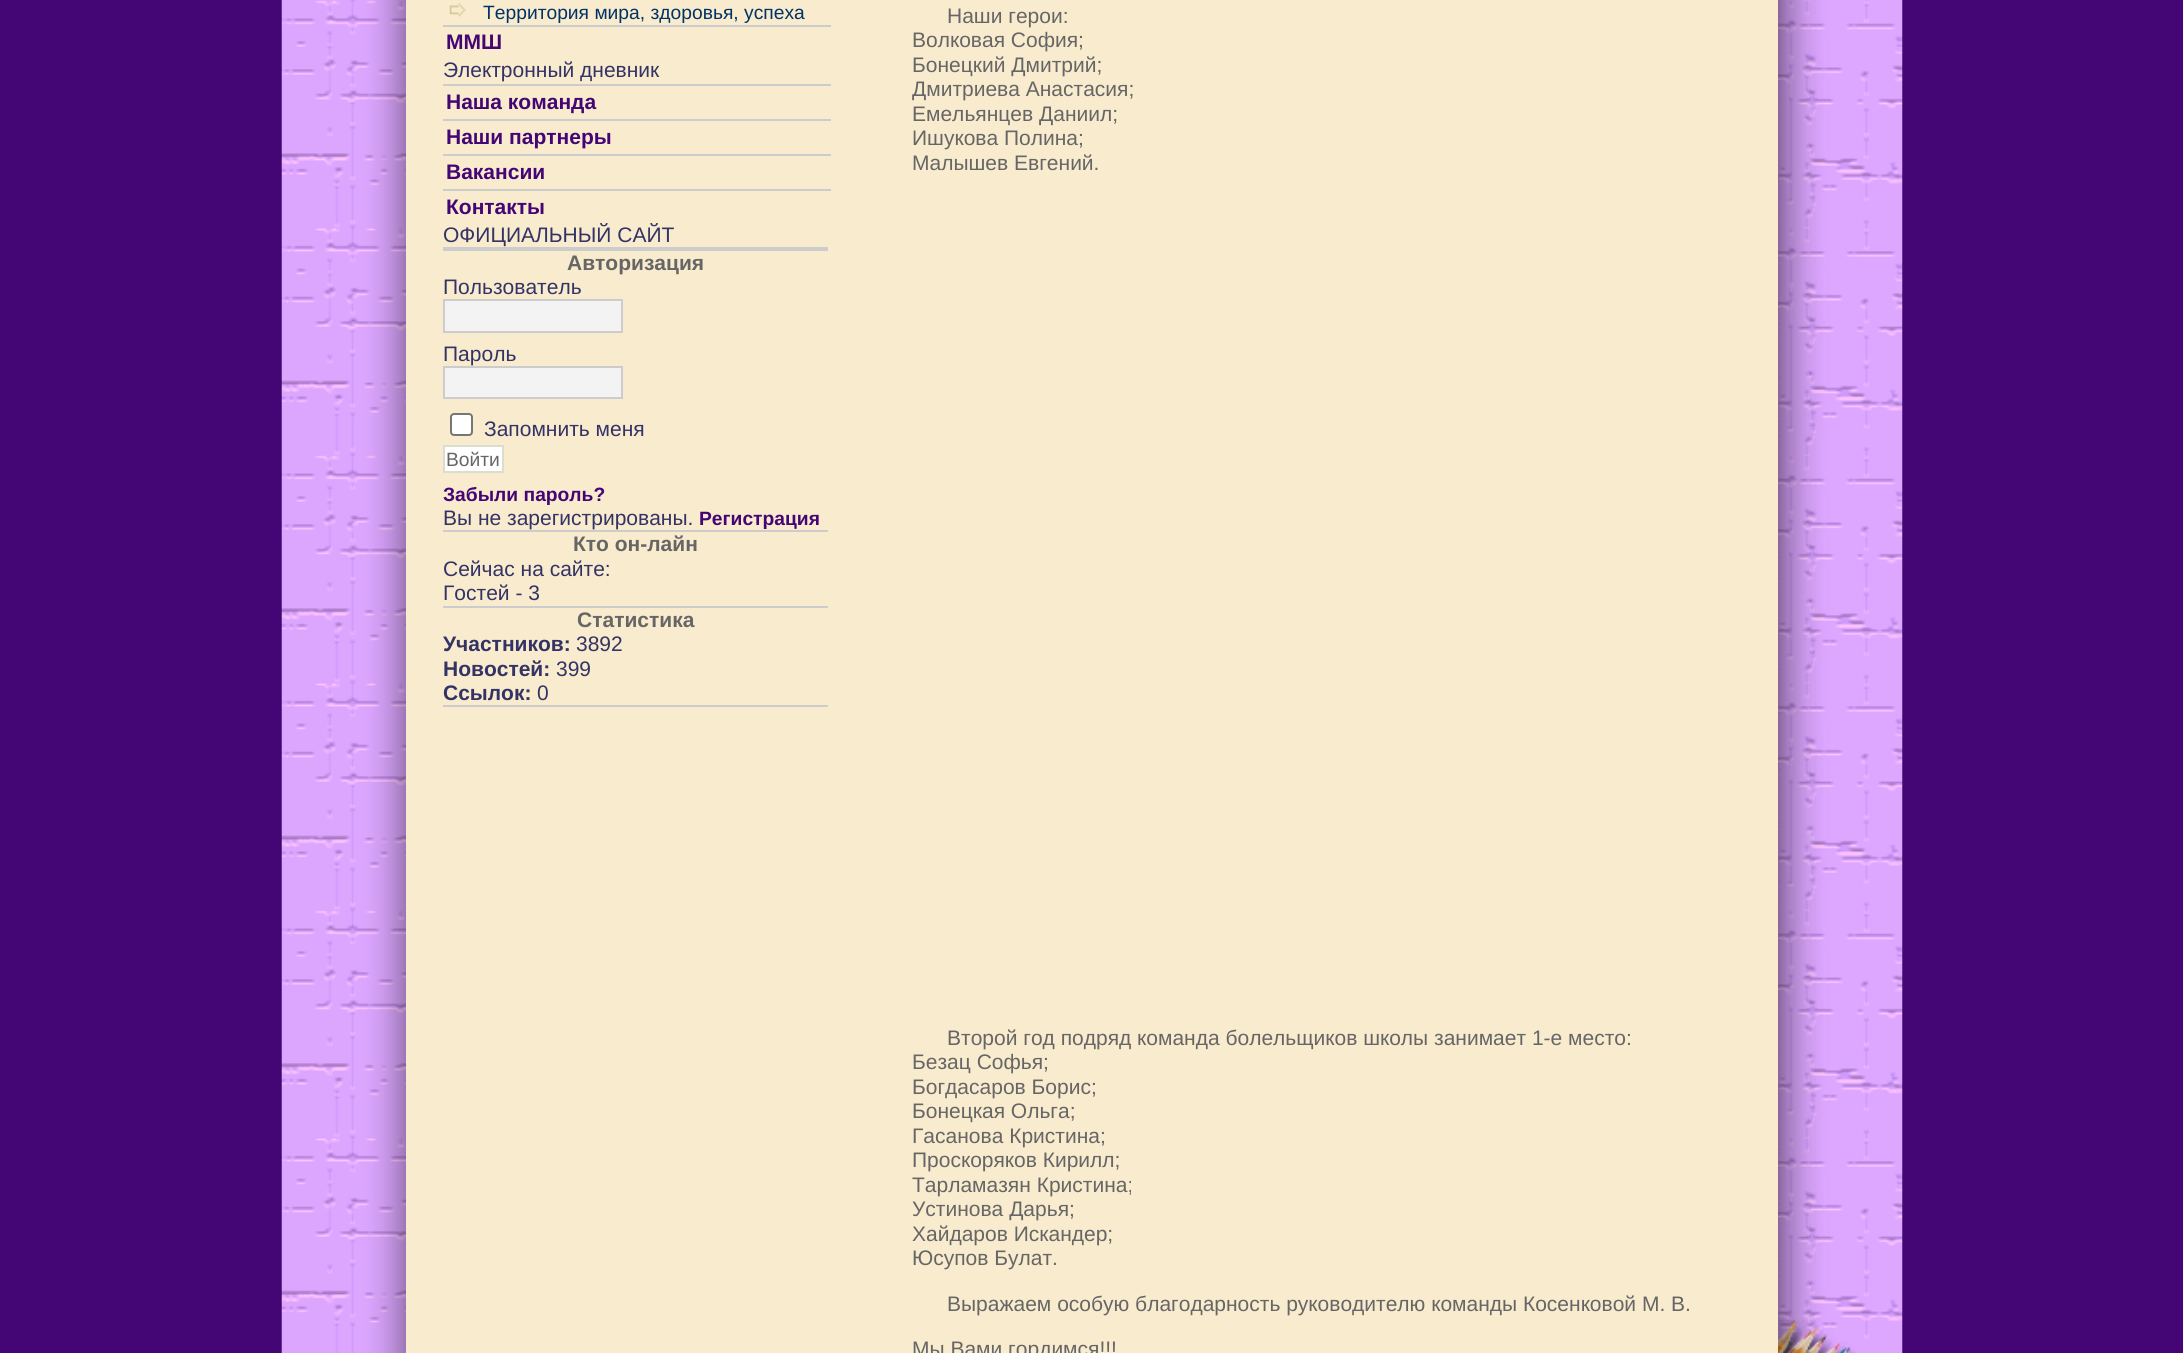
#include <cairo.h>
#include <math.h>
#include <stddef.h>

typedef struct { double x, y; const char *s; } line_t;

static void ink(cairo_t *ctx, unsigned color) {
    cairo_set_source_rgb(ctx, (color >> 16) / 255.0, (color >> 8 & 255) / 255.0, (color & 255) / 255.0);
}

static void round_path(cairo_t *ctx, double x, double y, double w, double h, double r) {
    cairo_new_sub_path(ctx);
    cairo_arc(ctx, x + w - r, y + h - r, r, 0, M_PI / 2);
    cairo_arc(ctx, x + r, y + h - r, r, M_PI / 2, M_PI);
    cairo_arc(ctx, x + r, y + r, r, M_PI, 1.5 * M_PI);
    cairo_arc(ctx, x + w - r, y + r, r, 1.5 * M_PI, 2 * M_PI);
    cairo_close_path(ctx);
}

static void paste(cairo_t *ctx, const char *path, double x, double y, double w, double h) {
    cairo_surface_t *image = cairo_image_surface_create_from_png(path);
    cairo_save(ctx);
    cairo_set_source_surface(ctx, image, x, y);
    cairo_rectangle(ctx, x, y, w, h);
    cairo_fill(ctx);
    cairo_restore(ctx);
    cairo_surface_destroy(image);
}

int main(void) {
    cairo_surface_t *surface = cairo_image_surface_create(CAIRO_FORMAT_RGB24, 2183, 1353);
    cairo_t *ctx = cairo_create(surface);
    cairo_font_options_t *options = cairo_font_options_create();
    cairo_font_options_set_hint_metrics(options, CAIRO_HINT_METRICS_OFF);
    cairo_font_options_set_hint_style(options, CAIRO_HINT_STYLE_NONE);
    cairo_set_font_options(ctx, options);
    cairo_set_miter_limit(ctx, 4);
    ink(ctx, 0x440674);
    cairo_paint(ctx);
    paste(ctx, "media/1.png", 281, 0, 1622, 1353);
    ink(ctx, 0xF8EBCE);
    cairo_rectangle(ctx, 406, 0, 1372, 1353);
    cairo_fill(ctx);
    ink(ctx, 0xCCCCCC);
    cairo_rectangle(ctx, 443, 247, 385, 4);
    cairo_fill(ctx);
    paste(ctx, "media/2.png", 449, 3, 17, 14);
    cairo_select_font_face(ctx, "Liberation Sans", CAIRO_FONT_SLANT_NORMAL, CAIRO_FONT_WEIGHT_NORMAL);
    cairo_set_font_size(ctx, 19.25);
    ink(ctx, 0x003366);
    cairo_move_to(ctx, 483, 19);
    cairo_show_text(ctx, "Территория мира, здоровья, успеха");
    ink(ctx, 0xCCCCCC);
    cairo_rectangle(ctx, 443, 25, 388, 2);
    cairo_fill(ctx);
    cairo_select_font_face(ctx, "Liberation Sans", CAIRO_FONT_SLANT_NORMAL, CAIRO_FONT_WEIGHT_BOLD);
    cairo_set_font_size(ctx, 21);
    ink(ctx, 0x440674);
    cairo_move_to(ctx, 446, 49);
    cairo_show_text(ctx, "ММШ");
    cairo_select_font_face(ctx, "Liberation Sans", CAIRO_FONT_SLANT_NORMAL, CAIRO_FONT_WEIGHT_NORMAL);
    ink(ctx, 0x333366);
    cairo_move_to(ctx, 443, 77);
    cairo_show_text(ctx, "Электронный дневник");
    ink(ctx, 0xCCCCCC);
    cairo_rectangle(ctx, 443, 84, 388, 2);
    cairo_fill(ctx);
    cairo_select_font_face(ctx, "Liberation Sans", CAIRO_FONT_SLANT_NORMAL, CAIRO_FONT_WEIGHT_BOLD);
    ink(ctx, 0x440674);
    cairo_move_to(ctx, 446, 109);
    cairo_show_text(ctx, "Наша команда");
    ink(ctx, 0xCCCCCC);
    cairo_rectangle(ctx, 443, 119, 388, 2);
    cairo_fill(ctx);
    ink(ctx, 0x440674);
    cairo_move_to(ctx, 446, 144);
    cairo_show_text(ctx, "Наши партнеры");
    ink(ctx, 0xCCCCCC);
    cairo_rectangle(ctx, 443, 154, 388, 2);
    cairo_fill(ctx);
    ink(ctx, 0x440674);
    cairo_move_to(ctx, 446, 179);
    cairo_show_text(ctx, "Вакансии");
    ink(ctx, 0xCCCCCC);
    cairo_rectangle(ctx, 443, 189, 388, 2);
    cairo_fill(ctx);
    ink(ctx, 0x440674);
    cairo_move_to(ctx, 446, 214);
    cairo_show_text(ctx, "Контакты");
    cairo_select_font_face(ctx, "Liberation Sans", CAIRO_FONT_SLANT_NORMAL, CAIRO_FONT_WEIGHT_NORMAL);
    ink(ctx, 0x333366);
    cairo_move_to(ctx, 443, 242);
    cairo_show_text(ctx, "ОФИЦИАЛЬНЫЙ САЙТ");
    ink(ctx, 0xCCCCCC);
    cairo_rectangle(ctx, 443, 530, 385, 2);
    cairo_fill(ctx);
    cairo_select_font_face(ctx, "Liberation Sans", CAIRO_FONT_SLANT_NORMAL, CAIRO_FONT_WEIGHT_BOLD);
    ink(ctx, 0x666666);
    cairo_move_to(ctx, 567, 270);
    cairo_show_text(ctx, "Авторизация");
    cairo_select_font_face(ctx, "Liberation Sans", CAIRO_FONT_SLANT_NORMAL, CAIRO_FONT_WEIGHT_NORMAL);
    ink(ctx, 0x333366);
    cairo_move_to(ctx, 443, 294);
    cairo_show_text(ctx, "Пользователь");
    ink(ctx, 0xF3F3F3);
    cairo_rectangle(ctx, 444, 300, 178, 32);
    cairo_fill_preserve(ctx);
    ink(ctx, 0xCCCCCC);
    cairo_stroke(ctx);
    ink(ctx, 0x333366);
    cairo_move_to(ctx, 443, 361);
    cairo_show_text(ctx, "Пароль");
    ink(ctx, 0xF3F3F3);
    cairo_rectangle(ctx, 444, 367, 178, 31);
    cairo_fill_preserve(ctx);
    ink(ctx, 0xCCCCCC);
    cairo_stroke(ctx);
    ink(ctx, 0xFFFFFF);
    round_path(ctx, 451, 414, 21, 21, 3);
    cairo_fill_preserve(ctx);
    ink(ctx, 0x767676);
    cairo_stroke(ctx);
    ink(ctx, 0x333366);
    cairo_move_to(ctx, 484, 436);
    cairo_show_text(ctx, "Запомнить меня");
    ink(ctx, 0xFFFFFF);
    cairo_rectangle(ctx, 444, 446, 59, 26);
    cairo_fill_preserve(ctx);
    ink(ctx, 0xDADDD0);
    cairo_stroke(ctx);
    cairo_set_font_size(ctx, 19.25);
    ink(ctx, 0x666666);
    cairo_move_to(ctx, 446, 466);
    cairo_show_text(ctx, "Войти");
    cairo_select_font_face(ctx, "Liberation Sans", CAIRO_FONT_SLANT_NORMAL, CAIRO_FONT_WEIGHT_BOLD);
    ink(ctx, 0x440674);
    cairo_move_to(ctx, 443, 501);
    cairo_show_text(ctx, "Забыли пароль?");
    cairo_select_font_face(ctx, "Liberation Sans", CAIRO_FONT_SLANT_NORMAL, CAIRO_FONT_WEIGHT_NORMAL);
    cairo_set_font_size(ctx, 21);
    ink(ctx, 0x333366);
    cairo_move_to(ctx, 443, 525);
    cairo_show_text(ctx, "Вы не зарегистрированы.");
    cairo_select_font_face(ctx, "Liberation Sans", CAIRO_FONT_SLANT_NORMAL, CAIRO_FONT_WEIGHT_BOLD);
    cairo_set_font_size(ctx, 19.25);
    ink(ctx, 0x440674);
    cairo_move_to(ctx, 699, 525);
    cairo_show_text(ctx, "Регистрация");
    ink(ctx, 0xCCCCCC);
    cairo_rectangle(ctx, 443, 606, 385, 2);
    cairo_fill(ctx);
    cairo_set_font_size(ctx, 21);
    ink(ctx, 0x666666);
    cairo_move_to(ctx, 573, 551);
    cairo_show_text(ctx, "Кто он-лайн");
    cairo_select_font_face(ctx, "Liberation Sans", CAIRO_FONT_SLANT_NORMAL, CAIRO_FONT_WEIGHT_NORMAL);
    ink(ctx, 0x333366);
    cairo_move_to(ctx, 443, 576);
    cairo_show_text(ctx, "Сейчас на сайте:");
    cairo_move_to(ctx, 443, 600);
    cairo_show_text(ctx, "Гостей - 3");
    ink(ctx, 0xCCCCCC);
    cairo_rectangle(ctx, 443, 705, 385, 2);
    cairo_fill(ctx);
    cairo_select_font_face(ctx, "Liberation Sans", CAIRO_FONT_SLANT_NORMAL, CAIRO_FONT_WEIGHT_BOLD);
    ink(ctx, 0x666666);
    cairo_move_to(ctx, 577, 627);
    cairo_show_text(ctx, "Статистика");
    ink(ctx, 0x333366);
    cairo_move_to(ctx, 443, 651);
    cairo_show_text(ctx, "Участников:");
    cairo_select_font_face(ctx, "Liberation Sans", CAIRO_FONT_SLANT_NORMAL, CAIRO_FONT_WEIGHT_NORMAL);
    cairo_move_to(ctx, 576, 651);
    cairo_show_text(ctx, "3892");
    cairo_select_font_face(ctx, "Liberation Sans", CAIRO_FONT_SLANT_NORMAL, CAIRO_FONT_WEIGHT_BOLD);
    cairo_move_to(ctx, 443, 676);
    cairo_show_text(ctx, "Новостей:");
    cairo_select_font_face(ctx, "Liberation Sans", CAIRO_FONT_SLANT_NORMAL, CAIRO_FONT_WEIGHT_NORMAL);
    cairo_move_to(ctx, 556, 676);
    cairo_show_text(ctx, "399");
    cairo_select_font_face(ctx, "Liberation Sans", CAIRO_FONT_SLANT_NORMAL, CAIRO_FONT_WEIGHT_BOLD);
    cairo_move_to(ctx, 443, 700);
    cairo_show_text(ctx, "Ссылок:");
    cairo_select_font_face(ctx, "Liberation Sans", CAIRO_FONT_SLANT_NORMAL, CAIRO_FONT_WEIGHT_NORMAL);
    cairo_move_to(ctx, 537, 700);
    cairo_show_text(ctx, "0");
    ink(ctx, 0x666666);
    {
        static const line_t items[] = {
            {947, 23, "Наши герои:"},
            {912, 47, "Волковая София;"},
            {912, 72, "Бонецкий Дмитрий;"},
            {912, 96, "Дмитриева Анастасия;"},
            {912, 121, "Емельянцев Даниил;"},
            {912, 145, "Ишукова Полина;"},
            {912, 170, "Малышев Евгений."},
            {947, 1045, "Второй год подряд команда болельщиков школы занимает 1-е место:"},
            {912, 1069, "Безац Софья;"},
            {912, 1094, "Богдасаров Борис;"},
            {912, 1118, "Бонецкая Ольга;"},
            {912, 1143, "Гасанова Кристина;"},
            {912, 1167, "Проскоряков Кирилл;"},
            {912, 1192, "Тарламазян Кристина;"},
            {912, 1216, "Устинова Дарья;"},
            {912, 1241, "Хайдаров Искандер;"},
            {912, 1265, "Юсупов Булат."},
            {947, 1311, "Выражаем особую благодарность руководителю команды Косенковой М. В."},
            {912, 1356, "Мы Вами гордимся!!!"},
        };
        for (size_t i = 0; i < sizeof items / sizeof *items; i++) {
            cairo_move_to(ctx, items[i].x, items[i].y);
            cairo_show_text(ctx, items[i].s);
        }
    }
    paste(ctx, "media/3.png", 1778, 1319, 79, 34);
    cairo_surface_write_to_png(surface, "image.png");
    cairo_font_options_destroy(options);
    cairo_destroy(ctx);
    cairo_surface_destroy(surface);
    return 0;
}
